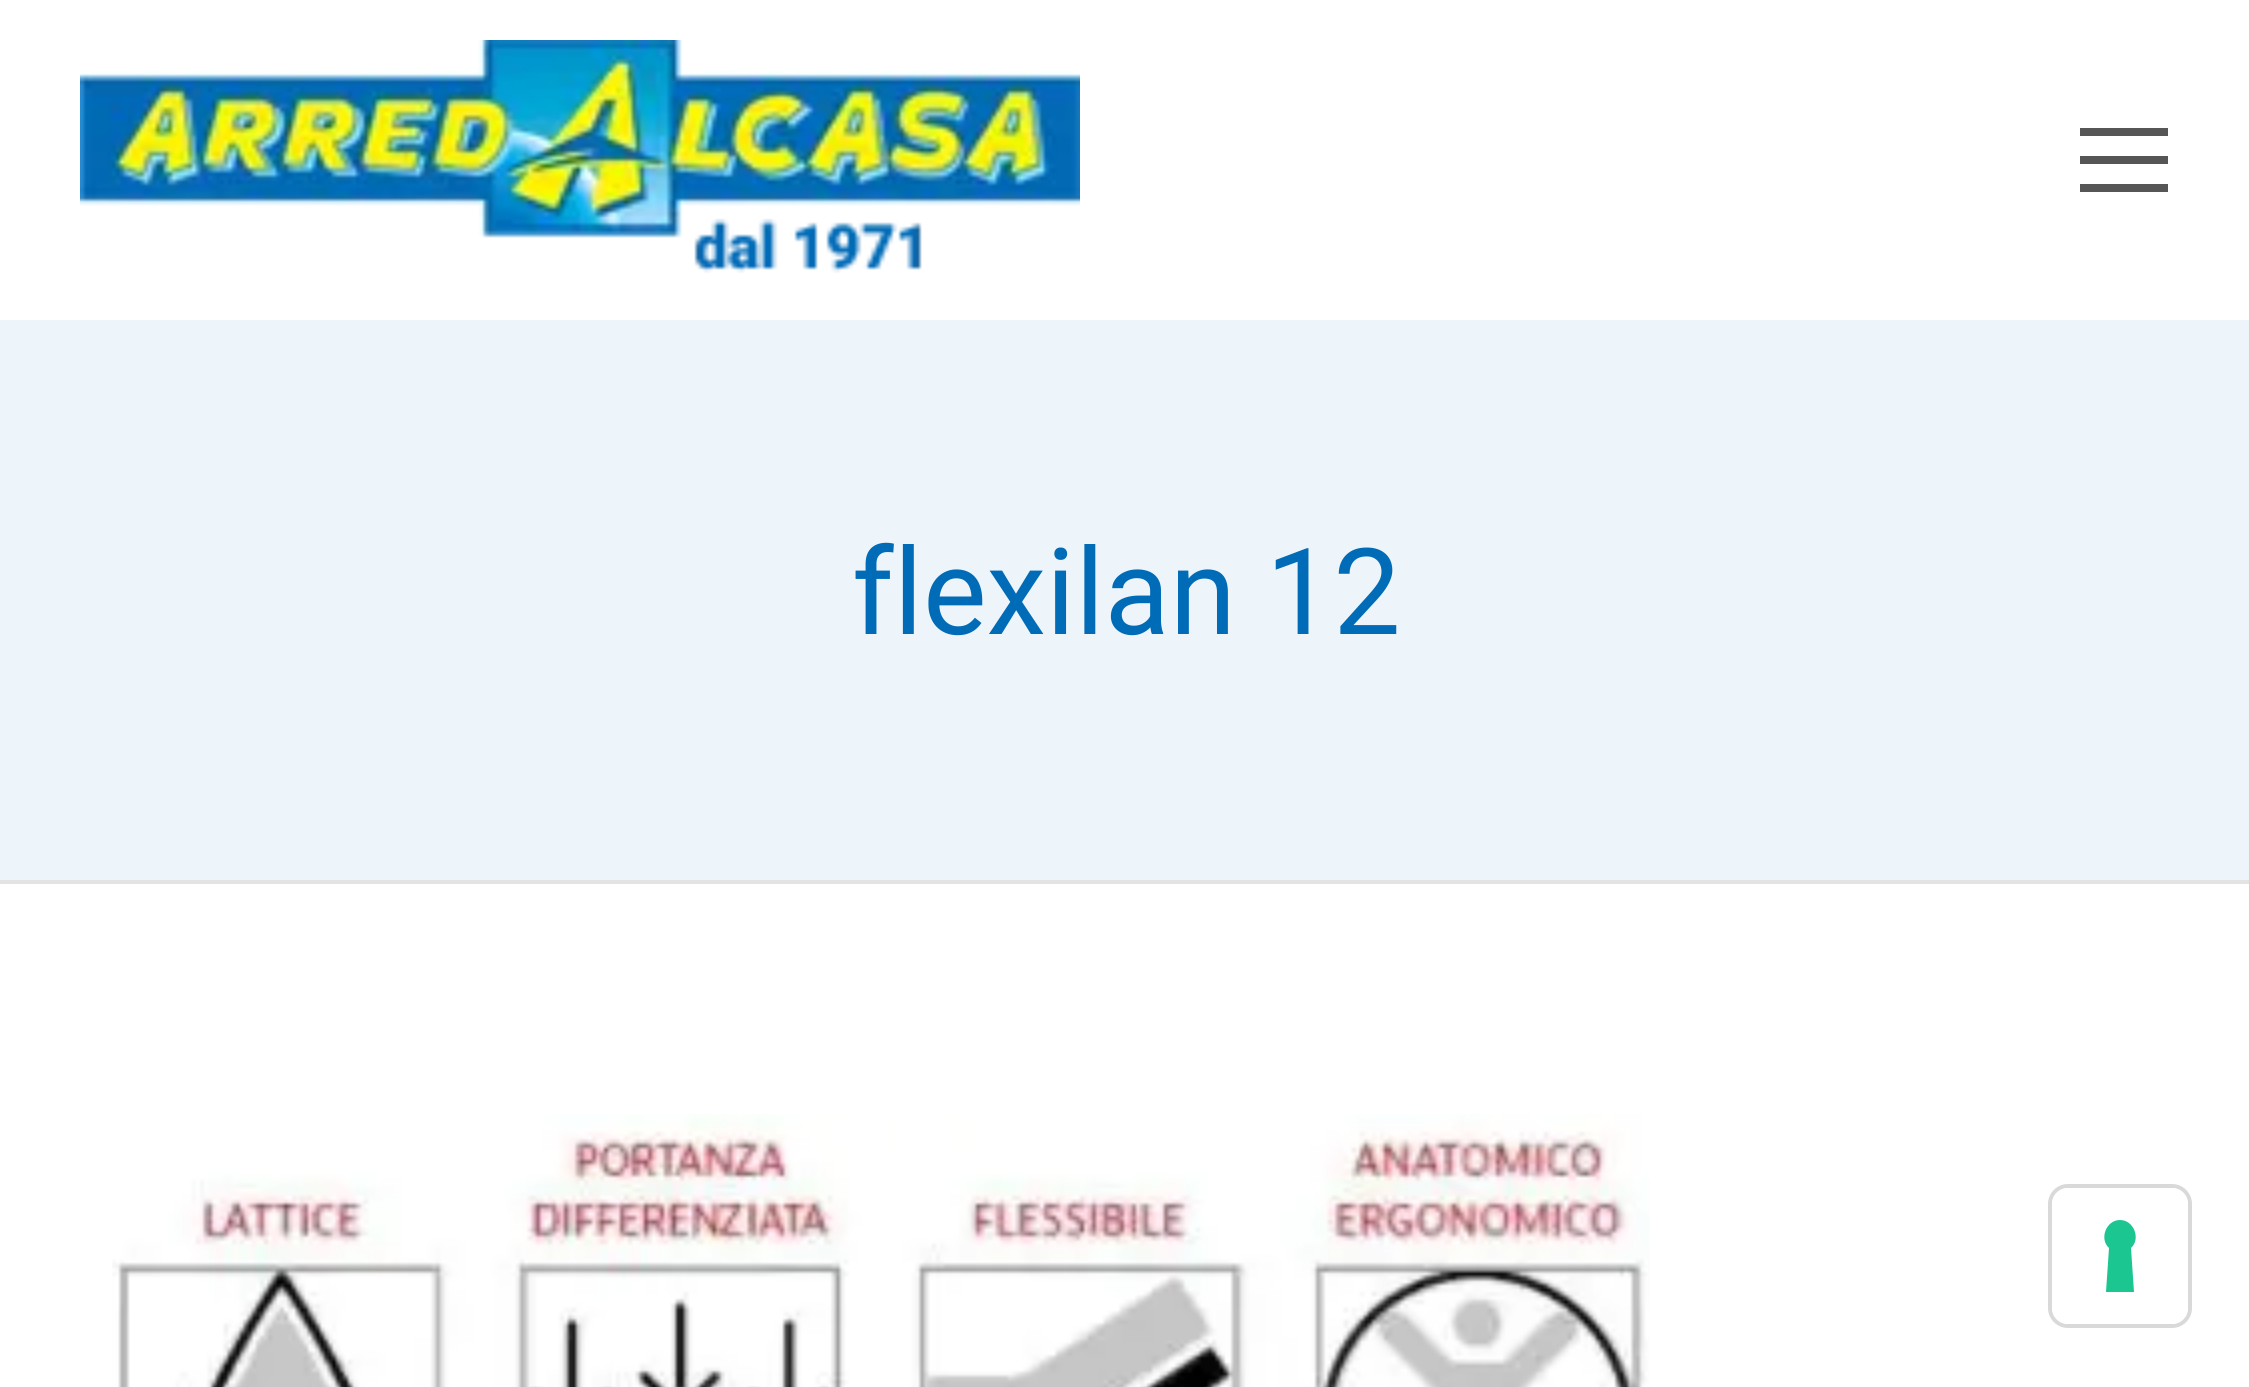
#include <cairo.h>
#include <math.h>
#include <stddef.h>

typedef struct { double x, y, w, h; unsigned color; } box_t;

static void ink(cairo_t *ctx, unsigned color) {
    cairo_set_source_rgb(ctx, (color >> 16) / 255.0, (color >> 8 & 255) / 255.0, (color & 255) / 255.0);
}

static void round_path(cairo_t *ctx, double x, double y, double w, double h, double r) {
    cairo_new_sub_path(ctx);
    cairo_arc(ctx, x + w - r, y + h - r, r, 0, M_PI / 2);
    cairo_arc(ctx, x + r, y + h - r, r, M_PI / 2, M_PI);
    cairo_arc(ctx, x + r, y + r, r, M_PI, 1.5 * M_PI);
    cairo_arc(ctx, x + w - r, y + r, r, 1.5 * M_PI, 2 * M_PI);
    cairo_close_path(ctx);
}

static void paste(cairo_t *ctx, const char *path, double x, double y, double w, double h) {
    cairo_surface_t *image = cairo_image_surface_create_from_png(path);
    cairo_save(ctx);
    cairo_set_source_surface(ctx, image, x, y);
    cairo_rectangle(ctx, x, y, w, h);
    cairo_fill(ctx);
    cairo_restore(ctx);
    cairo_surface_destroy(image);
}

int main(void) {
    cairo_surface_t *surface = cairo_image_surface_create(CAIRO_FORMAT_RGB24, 2249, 1387);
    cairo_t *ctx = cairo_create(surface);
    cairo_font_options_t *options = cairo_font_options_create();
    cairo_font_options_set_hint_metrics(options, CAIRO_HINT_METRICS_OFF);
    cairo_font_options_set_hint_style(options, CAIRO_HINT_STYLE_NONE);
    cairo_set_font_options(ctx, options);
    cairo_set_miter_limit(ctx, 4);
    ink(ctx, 0xFFFFFF);
    cairo_paint(ctx);
    paste(ctx, "media/1.png", 80, 40, 1000, 233);
    {
        static const box_t items[] = {
            {2080, 128, 88, 8, 0x565656},
            {2080, 156, 88, 8, 0x565656},
            {2080, 184, 88, 8, 0x565656},
            {0, 320, 2249, 560, 0xEDF5FA},
            {0, 880, 2249, 4, 0xE3E3E3},
        };
        for (size_t i = 0; i < sizeof items / sizeof *items; i++) {
            ink(ctx, items[i].color);
            cairo_rectangle(ctx, items[i].x, items[i].y, items[i].w, items[i].h);
            cairo_fill(ctx);
        }
    }
    cairo_select_font_face(ctx, "Roboto", CAIRO_FONT_SLANT_NORMAL, CAIRO_FONT_WEIGHT_NORMAL);
    cairo_set_font_size(ctx, 120);
    ink(ctx, 0x006BB6);
    cairo_move_to(ctx, 852, 634);
    cairo_show_text(ctx, "flexilan 12");
    paste(ctx, "media/2.png", 112, 1114, 1538, 273);
    round_path(ctx, 2050, 1186, 140, 140, 18);
    ink(ctx, 0xD9D9D9);
    cairo_set_line_width(ctx, 4);
    cairo_stroke(ctx);
    ink(ctx, 0xFFFFFF);
    round_path(ctx, 2052, 1188, 136, 136, 16);
    cairo_fill(ctx);
    ink(ctx, 0x1CC691);
    cairo_set_fill_rule(ctx, CAIRO_FILL_RULE_EVEN_ODD);
    cairo_new_path(ctx);
    cairo_move_to(ctx, 2120, 1220);
    cairo_curve_to(ctx, 2134, 1220, 2141, 1239, 2131, 1248);
    cairo_line_to(ctx, 2134, 1292);
    cairo_line_to(ctx, 2106, 1292);
    cairo_line_to(ctx, 2109, 1248);
    cairo_curve_to(ctx, 2099, 1239, 2106, 1220, 2120, 1220);
    cairo_close_path(ctx);
    cairo_fill(ctx);
    cairo_surface_write_to_png(surface, "image.png");
    cairo_font_options_destroy(options);
    cairo_destroy(ctx);
    cairo_surface_destroy(surface);
    return 0;
}
